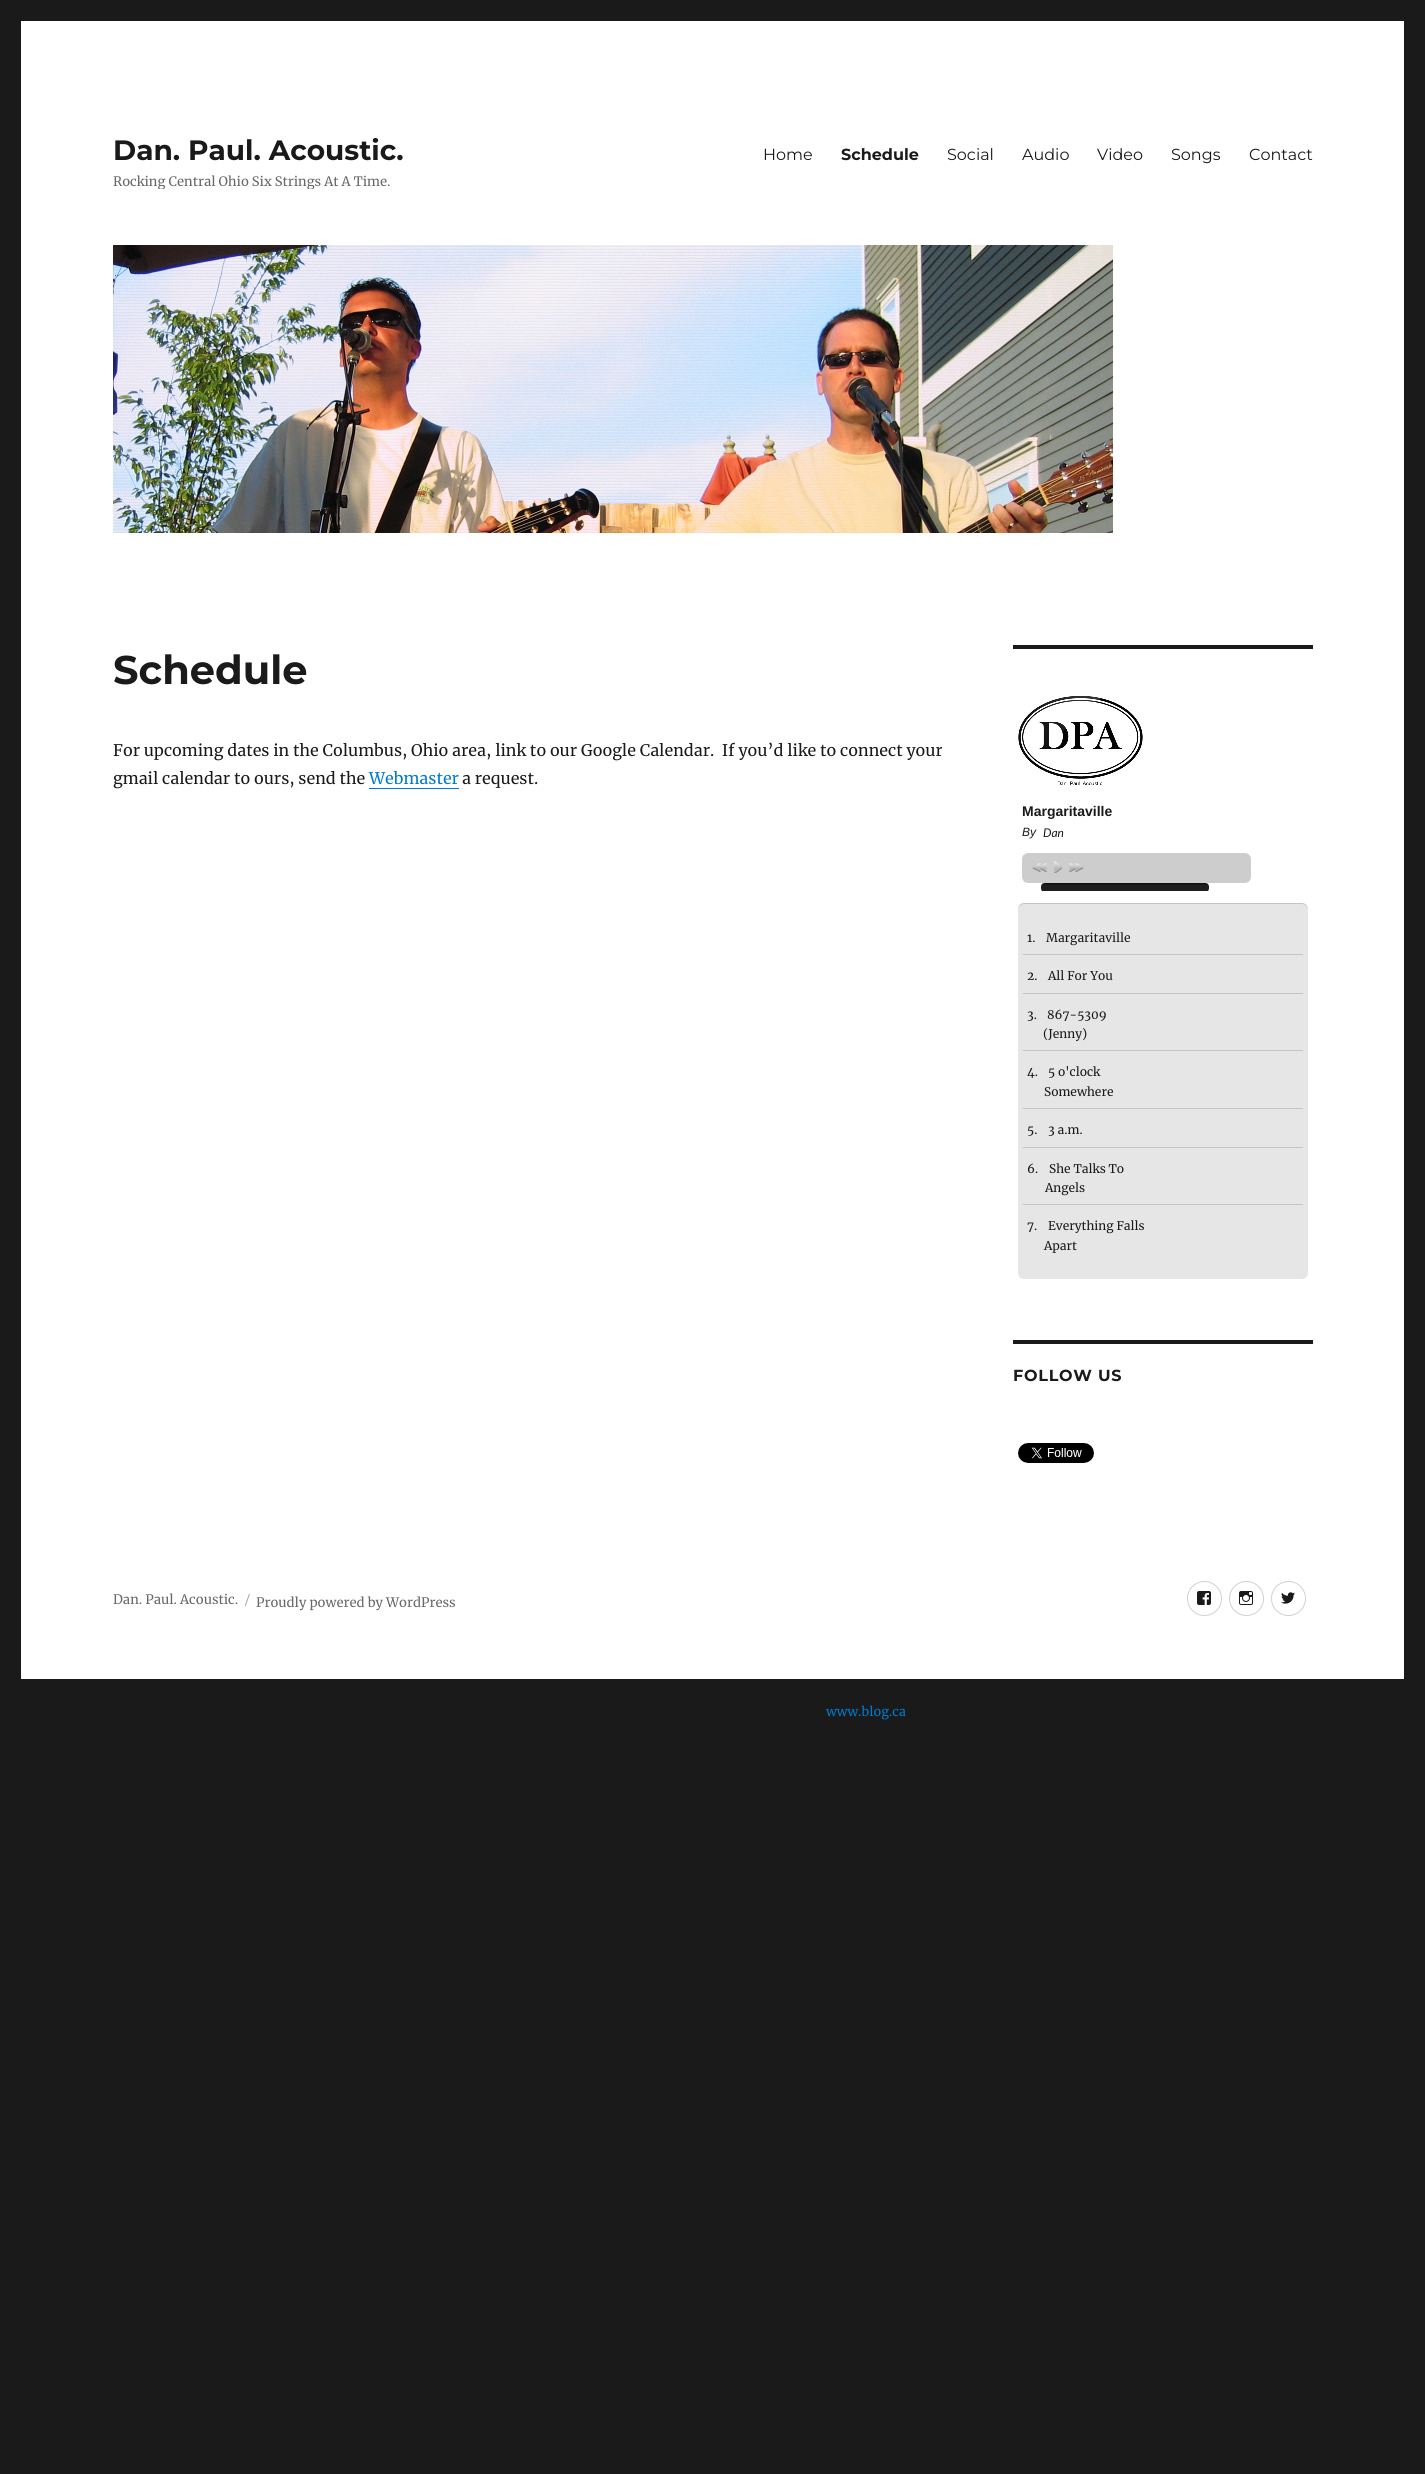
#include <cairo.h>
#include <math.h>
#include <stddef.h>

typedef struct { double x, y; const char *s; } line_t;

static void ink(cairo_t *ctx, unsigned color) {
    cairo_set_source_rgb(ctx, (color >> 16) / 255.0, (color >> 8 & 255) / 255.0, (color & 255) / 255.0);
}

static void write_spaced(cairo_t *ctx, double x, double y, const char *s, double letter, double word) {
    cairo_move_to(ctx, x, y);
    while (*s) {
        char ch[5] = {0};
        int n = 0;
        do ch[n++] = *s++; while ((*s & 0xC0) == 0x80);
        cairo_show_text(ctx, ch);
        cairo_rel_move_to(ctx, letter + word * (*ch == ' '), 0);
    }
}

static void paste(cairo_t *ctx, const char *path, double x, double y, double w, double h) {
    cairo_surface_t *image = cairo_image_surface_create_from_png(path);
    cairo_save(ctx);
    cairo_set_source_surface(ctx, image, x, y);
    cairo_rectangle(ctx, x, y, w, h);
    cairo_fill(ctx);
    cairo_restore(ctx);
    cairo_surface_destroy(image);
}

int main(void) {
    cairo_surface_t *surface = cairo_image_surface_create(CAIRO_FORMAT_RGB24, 1425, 2474);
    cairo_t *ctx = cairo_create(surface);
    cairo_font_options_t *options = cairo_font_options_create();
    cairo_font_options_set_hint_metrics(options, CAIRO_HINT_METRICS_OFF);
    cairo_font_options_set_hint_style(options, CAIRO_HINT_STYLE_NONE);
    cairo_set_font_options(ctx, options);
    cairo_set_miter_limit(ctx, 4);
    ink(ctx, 0x1A1A1A);
    cairo_paint(ctx);
    ink(ctx, 0xFFFFFF);
    cairo_rectangle(ctx, 21, 21, 1383, 1658);
    cairo_fill(ctx);
    cairo_select_font_face(ctx, "Montserrat Thin", CAIRO_FONT_SLANT_NORMAL, CAIRO_FONT_WEIGHT_NORMAL);
    cairo_set_font_size(ctx, 28);
    ink(ctx, 0x1A1A1A);
    cairo_move_to(ctx, 113, 160);
    cairo_show_text(ctx, "Dan. Paul. Acoustic.");
    cairo_save(ctx);
    cairo_rectangle(ctx, 113, 133, 290, 56);
    cairo_clip(ctx);
    cairo_select_font_face(ctx, "Merriweather", CAIRO_FONT_SLANT_NORMAL, CAIRO_FONT_WEIGHT_NORMAL);
    cairo_set_font_size(ctx, 13);
    ink(ctx, 0x686868);
    cairo_move_to(ctx, 113, 186);
    cairo_show_text(ctx, "Rocking Central Ohio Six Strings At A Time.");
    cairo_restore(ctx);
    cairo_select_font_face(ctx, "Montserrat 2 Thin", CAIRO_FONT_SLANT_NORMAL, CAIRO_FONT_WEIGHT_NORMAL);
    cairo_set_font_size(ctx, 16);
    cairo_move_to(ctx, 763, 160);
    cairo_show_text(ctx, "Home");
    cairo_select_font_face(ctx, "Montserrat Thin", CAIRO_FONT_SLANT_NORMAL, CAIRO_FONT_WEIGHT_NORMAL);
    cairo_move_to(ctx, 841, 160);
    cairo_show_text(ctx, "Schedule");
    cairo_select_font_face(ctx, "Montserrat 2 Thin", CAIRO_FONT_SLANT_NORMAL, CAIRO_FONT_WEIGHT_NORMAL);
    {
        static const line_t items[] = {
            {947, 160, "Social"},
            {1022, 160, "Audio"},
            {1097, 160, "Video"},
            {1171, 160, "Songs"},
            {1249, 160, "Contact"},
        };
        for (size_t i = 0; i < sizeof items / sizeof *items; i++) {
            cairo_move_to(ctx, items[i].x, items[i].y);
            cairo_show_text(ctx, items[i].s);
        }
    }
    paste(ctx, "media/1.png", 113, 245, 1000, 288);
    cairo_select_font_face(ctx, "Montserrat Thin", CAIRO_FONT_SLANT_NORMAL, CAIRO_FONT_WEIGHT_NORMAL);
    cairo_set_font_size(ctx, 40);
    cairo_move_to(ctx, 113, 684);
    cairo_show_text(ctx, "Schedule");
    cairo_select_font_face(ctx, "Merriweather", CAIRO_FONT_SLANT_NORMAL, CAIRO_FONT_WEIGHT_NORMAL);
    cairo_set_font_size(ctx, 16);
    cairo_move_to(ctx, 113, 756);
    cairo_show_text(ctx, "For upcoming dates in the Columbus, Ohio area, link to our Google Calendar.  If you’d like to connect your");
    cairo_move_to(ctx, 113, 784);
    cairo_show_text(ctx, "gmail calendar to ours, send the");
    ink(ctx, 0x007ACC);
    cairo_move_to(ctx, 369, 784);
    cairo_show_text(ctx, "Webmaster");
    cairo_rectangle(ctx, 369, 788, 90, 1);
    cairo_fill(ctx);
    ink(ctx, 0x1A1A1A);
    cairo_move_to(ctx, 462, 784);
    cairo_show_text(ctx, "a request.");
    cairo_rectangle(ctx, 1013, 645, 300, 4);
    cairo_fill(ctx);
    paste(ctx, "media/2.png", 1018, 696, 125, 89);
    paste(ctx, "media/3.png", 1018, 696, 84, 68);
    cairo_select_font_face(ctx, "Liberation Sans", CAIRO_FONT_SLANT_NORMAL, CAIRO_FONT_WEIGHT_BOLD);
    cairo_set_font_size(ctx, 14);
    cairo_move_to(ctx, 1022, 816);
    cairo_show_text(ctx, "Margaritaville");
    cairo_select_font_face(ctx, "Liberation Sans", CAIRO_FONT_SLANT_ITALIC, CAIRO_FONT_WEIGHT_NORMAL);
    cairo_set_font_size(ctx, 12);
    cairo_move_to(ctx, 1022, 836);
    cairo_show_text(ctx, "By");
    cairo_select_font_face(ctx, "Lato", CAIRO_FONT_SLANT_ITALIC, CAIRO_FONT_WEIGHT_NORMAL);
    cairo_move_to(ctx, 1043, 837);
    cairo_show_text(ctx, "Dan");
    paste(ctx, "media/4.png", 1022, 853, 229, 30);
    paste(ctx, "media/5.png", 1032, 863, 15, 9);
    paste(ctx, "media/6.png", 1054, 861, 8, 12);
    paste(ctx, "media/7.png", 1069, 863, 15, 9);
    paste(ctx, "media/8.png", 1041, 883, 168, 8);
    paste(ctx, "media/9.png", 1018, 903, 290, 376);
    cairo_set_source_rgba(ctx, 0.016, 0.016, 0.016, 0.15);
    cairo_new_path(ctx);
    cairo_move_to(ctx, 1024, 904);
    cairo_line_to(ctx, 1302, 904);
    cairo_curve_to(ctx, 1305, 904, 1308, 907, 1308, 910);
    cairo_line_to(ctx, 1308, 909);
    cairo_curve_to(ctx, 1308, 906, 1305, 903, 1302, 903);
    cairo_line_to(ctx, 1024, 903);
    cairo_curve_to(ctx, 1021, 903, 1018, 906, 1018, 909);
    cairo_line_to(ctx, 1018, 910);
    cairo_curve_to(ctx, 1018, 907, 1021, 904, 1024, 904);
    cairo_close_path(ctx);
    cairo_fill(ctx);
    ink(ctx, 0xC4C4C4);
    cairo_rectangle(ctx, 1023, 954, 280, 1);
    cairo_fill(ctx);
    cairo_select_font_face(ctx, "Merriweather", CAIRO_FONT_SLANT_NORMAL, CAIRO_FONT_WEIGHT_NORMAL);
    ink(ctx, 0x1A1A1A);
    cairo_move_to(ctx, 1027, 942);
    cairo_show_text(ctx, "1.");
    cairo_move_to(ctx, 1046, 942);
    cairo_show_text(ctx, "Margaritaville");
    ink(ctx, 0xC4C4C4);
    cairo_rectangle(ctx, 1023, 993, 280, 1);
    cairo_fill(ctx);
    ink(ctx, 0x1A1A1A);
    cairo_move_to(ctx, 1027, 980);
    cairo_show_text(ctx, "2.");
    cairo_move_to(ctx, 1048, 980);
    cairo_show_text(ctx, "All For You");
    ink(ctx, 0xC4C4C4);
    cairo_rectangle(ctx, 1023, 1050, 280, 1);
    cairo_fill(ctx);
    ink(ctx, 0x1A1A1A);
    {
        static const line_t items[] = {
            {1027, 1019, "3."},
            {1047, 1019, "867-5309"},
            {1043, 1038, "(Jenny)"},
        };
        for (size_t i = 0; i < sizeof items / sizeof *items; i++) {
            cairo_move_to(ctx, items[i].x, items[i].y);
            cairo_show_text(ctx, items[i].s);
        }
    }
    ink(ctx, 0xC4C4C4);
    cairo_rectangle(ctx, 1023, 1108, 280, 1);
    cairo_fill(ctx);
    ink(ctx, 0x1A1A1A);
    {
        static const line_t items[] = {
            {1027, 1076, "4."},
            {1048, 1076, "5 o'clock"},
            {1044, 1096, "Somewhere"},
        };
        for (size_t i = 0; i < sizeof items / sizeof *items; i++) {
            cairo_move_to(ctx, items[i].x, items[i].y);
            cairo_show_text(ctx, items[i].s);
        }
    }
    ink(ctx, 0xC4C4C4);
    cairo_rectangle(ctx, 1023, 1147, 280, 1);
    cairo_fill(ctx);
    ink(ctx, 0x1A1A1A);
    cairo_move_to(ctx, 1027, 1134);
    cairo_show_text(ctx, "5.");
    cairo_move_to(ctx, 1048, 1134);
    cairo_show_text(ctx, "3 a.m.");
    ink(ctx, 0xC4C4C4);
    cairo_rectangle(ctx, 1023, 1204, 280, 1);
    cairo_fill(ctx);
    ink(ctx, 0x1A1A1A);
    {
        static const line_t items[] = {
            {1027, 1173, "6."},
            {1049, 1173, "She Talks To"},
            {1045, 1192, "Angels"},
            {1027, 1230, "7."},
            {1048, 1230, "Everything Falls"},
            {1044, 1250, "Apart"},
        };
        for (size_t i = 0; i < sizeof items / sizeof *items; i++) {
            cairo_move_to(ctx, items[i].x, items[i].y);
            cairo_show_text(ctx, items[i].s);
        }
    }
    cairo_rectangle(ctx, 1013, 1340, 300, 4);
    cairo_fill(ctx);
    cairo_select_font_face(ctx, "Montserrat Thin", CAIRO_FONT_SLANT_NORMAL, CAIRO_FONT_WEIGHT_NORMAL);
    cairo_set_font_size(ctx, 16);
    write_spaced(ctx, 1013, 1381, "FOLLOW US", 0.75, 0);
    paste(ctx, "media/10.png", 1018, 1443, 76, 20);
    cairo_select_font_face(ctx, "Merriweather", CAIRO_FONT_SLANT_NORMAL, CAIRO_FONT_WEIGHT_NORMAL);
    cairo_set_font_size(ctx, 13);
    ink(ctx, 0x686868);
    cairo_move_to(ctx, 113, 1604);
    cairo_show_text(ctx, "Dan. Paul. Acoustic.");
    cairo_select_font_face(ctx, "Montserrat 2 Thin", CAIRO_FONT_SLANT_NORMAL, CAIRO_FONT_WEIGHT_NORMAL);
    ink(ctx, 0x959595);
    cairo_move_to(ctx, 245, 1605);
    cairo_show_text(ctx, "/");
    cairo_select_font_face(ctx, "Merriweather", CAIRO_FONT_SLANT_NORMAL, CAIRO_FONT_WEIGHT_NORMAL);
    ink(ctx, 0x686868);
    cairo_move_to(ctx, 256, 1607);
    cairo_show_text(ctx, "Proudly powered by WordPress");
    cairo_new_path(ctx);
    cairo_arc(ctx, 1204.5, 1598.5, 17, 0, 2 * M_PI);
    ink(ctx, 0xD1D1D1);
    cairo_set_line_width(ctx, 1);
    cairo_stroke(ctx);
    paste(ctx, "media/11.png", 1197, 1591, 14, 14);
    cairo_arc(ctx, 1246.5, 1598.5, 17, 0, 2 * M_PI);
    cairo_stroke(ctx);
    paste(ctx, "media/12.png", 1239, 1591, 14, 14);
    cairo_arc(ctx, 1288.5, 1598.5, 17, 0, 2 * M_PI);
    cairo_stroke(ctx);
    paste(ctx, "media/13.png", 1281, 1592, 14, 12);
    cairo_set_font_size(ctx, 12.75);
    ink(ctx, 0x007ACC);
    cairo_move_to(ctx, 826, 1716);
    cairo_show_text(ctx, "www.blog.ca");
    cairo_surface_write_to_png(surface, "image.png");
    cairo_font_options_destroy(options);
    cairo_destroy(ctx);
    cairo_surface_destroy(surface);
    return 0;
}
